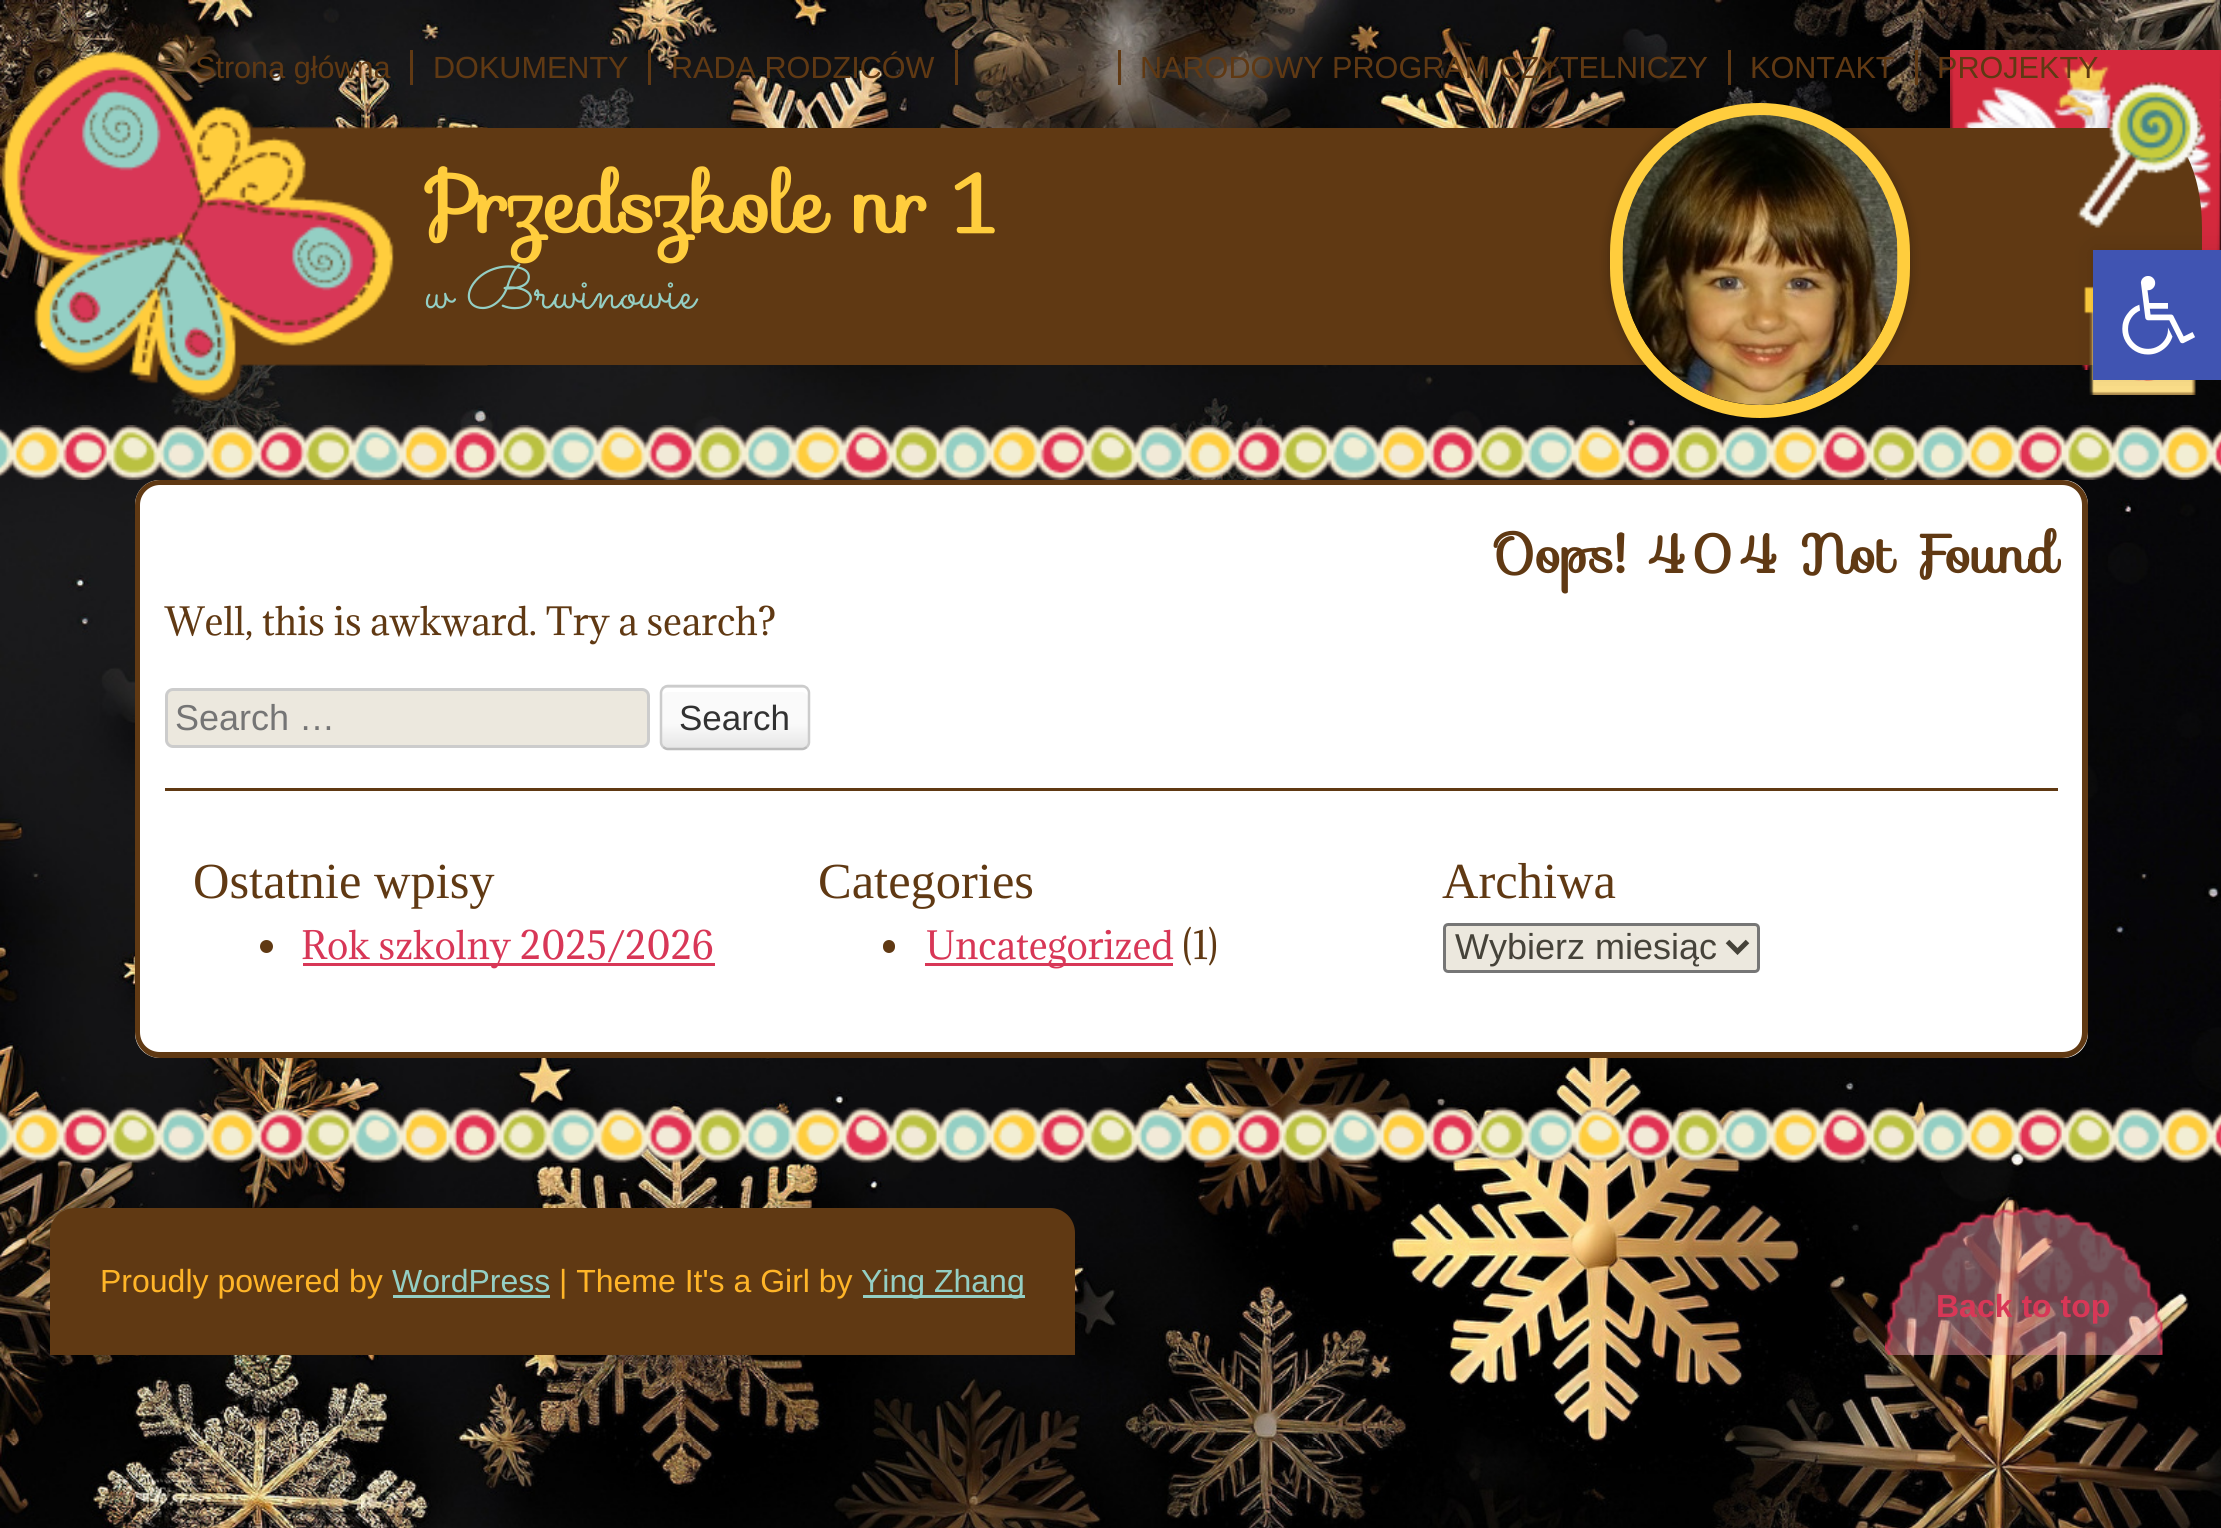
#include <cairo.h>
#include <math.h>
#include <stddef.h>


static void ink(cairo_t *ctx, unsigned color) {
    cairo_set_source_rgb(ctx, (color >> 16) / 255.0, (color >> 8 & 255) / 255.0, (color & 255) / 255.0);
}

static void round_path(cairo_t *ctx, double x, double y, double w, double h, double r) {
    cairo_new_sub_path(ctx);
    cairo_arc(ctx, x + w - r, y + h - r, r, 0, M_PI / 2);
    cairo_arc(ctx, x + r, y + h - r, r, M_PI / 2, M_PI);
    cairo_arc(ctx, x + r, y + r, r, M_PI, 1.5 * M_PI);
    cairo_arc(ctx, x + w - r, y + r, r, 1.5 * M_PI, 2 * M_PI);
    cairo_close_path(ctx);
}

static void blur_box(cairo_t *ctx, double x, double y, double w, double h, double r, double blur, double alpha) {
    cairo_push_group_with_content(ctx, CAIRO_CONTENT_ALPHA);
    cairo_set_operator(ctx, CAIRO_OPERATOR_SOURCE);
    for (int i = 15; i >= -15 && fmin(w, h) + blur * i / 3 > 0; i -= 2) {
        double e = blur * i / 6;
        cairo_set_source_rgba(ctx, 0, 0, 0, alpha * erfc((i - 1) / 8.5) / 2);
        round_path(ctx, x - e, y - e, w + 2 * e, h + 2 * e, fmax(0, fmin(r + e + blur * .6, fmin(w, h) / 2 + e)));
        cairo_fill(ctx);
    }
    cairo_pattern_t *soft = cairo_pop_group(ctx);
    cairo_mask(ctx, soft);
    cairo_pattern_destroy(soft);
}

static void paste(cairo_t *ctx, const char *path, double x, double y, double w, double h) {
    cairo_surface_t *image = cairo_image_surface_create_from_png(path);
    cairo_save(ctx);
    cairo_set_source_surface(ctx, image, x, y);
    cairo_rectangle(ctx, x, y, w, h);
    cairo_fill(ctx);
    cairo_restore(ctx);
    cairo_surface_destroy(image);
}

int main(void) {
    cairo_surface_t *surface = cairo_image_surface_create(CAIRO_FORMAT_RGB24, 2221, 1528);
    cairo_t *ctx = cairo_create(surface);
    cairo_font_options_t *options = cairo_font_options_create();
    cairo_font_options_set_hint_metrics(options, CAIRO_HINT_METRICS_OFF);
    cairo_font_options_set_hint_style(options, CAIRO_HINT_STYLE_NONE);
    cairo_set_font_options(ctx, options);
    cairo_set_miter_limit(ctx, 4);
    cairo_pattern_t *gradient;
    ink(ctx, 0xFFFFFF);
    cairo_paint(ctx);
    paste(ctx, "media/1.png", 0, 0, 2221, 1528);
    paste(ctx, "media/2.png", 1950, 50, 271, 320);
    paste(ctx, "media/3.png", 0, 425, 2221, 55);
    paste(ctx, "media/4.png", 1, 51, 487, 352);
    ink(ctx, 0x603913);
    cairo_rectangle(ctx, 410, 50, 3, 35);
    cairo_fill(ctx);
    cairo_select_font_face(ctx, "Liberation Sans", CAIRO_FONT_SLANT_NORMAL, CAIRO_FONT_WEIGHT_NORMAL);
    cairo_set_font_size(ctx, 30.6);
    cairo_move_to(ctx, 195, 78);
    cairo_show_text(ctx, "Strona główna");
    cairo_rectangle(ctx, 648, 50, 3, 35);
    cairo_fill(ctx);
    cairo_move_to(ctx, 433, 78);
    cairo_show_text(ctx, "DOKUMENTY");
    cairo_rectangle(ctx, 955, 50, 3, 35);
    cairo_fill(ctx);
    cairo_move_to(ctx, 671, 78);
    cairo_show_text(ctx, "RADA RODZICÓW");
    cairo_rectangle(ctx, 1118, 50, 3, 35);
    cairo_fill(ctx);
    cairo_new_path(ctx);
    cairo_move_to(ctx, 425, 128);
    cairo_line_to(ctx, 2152, 128);
    cairo_curve_to(ctx, 2180, 128, 2202, 172, 2202, 228);
    cairo_line_to(ctx, 2202, 265);
    cairo_curve_to(ctx, 2202, 320, 2180, 365, 2152, 365);
    cairo_line_to(ctx, 425, 365);
    cairo_close_path(ctx);
    cairo_fill(ctx);
    ink(ctx, 0x000000);
    blur_box(ctx, 1610, 103, 300, 315, 150, 6, 0.3);
    ink(ctx, 0x603913);
    cairo_rectangle(ctx, 1728, 50, 3, 35);
    cairo_fill(ctx);
    cairo_move_to(ctx, 1140, 78);
    cairo_show_text(ctx, "NARODOWY PROGRAM CZYTELNICZY");
    cairo_rectangle(ctx, 1915, 50, 3, 35);
    cairo_fill(ctx);
    cairo_move_to(ctx, 1750, 78);
    cairo_show_text(ctx, "KONTAKT");
    cairo_move_to(ctx, 1937, 78);
    cairo_show_text(ctx, "PROJEKTY");
    paste(ctx, "media/5.png", 2077, 81, 124, 147);
    cairo_select_font_face(ctx, "Sofia", CAIRO_FONT_SLANT_NORMAL, CAIRO_FONT_WEIGHT_BOLD);
    cairo_set_font_size(ctx, 80);
    ink(ctx, 0xFFCD3D);
    cairo_move_to(ctx, 425, 233);
    cairo_show_text(ctx, "Przedszkole nr 1");
    round_path(ctx, 1616.5, 109.5, 287, 302, 143.5);
    cairo_set_line_width(ctx, 13);
    cairo_stroke(ctx);
    paste(ctx, "media/6.png", 1622, 115, 276, 290);
    paste(ctx, "media/7.png", 2084, 286, 112, 109);
    cairo_select_font_face(ctx, "Sacramento", CAIRO_FONT_SLANT_NORMAL, CAIRO_FONT_WEIGHT_NORMAL);
    cairo_set_font_size(ctx, 60);
    ink(ctx, 0x94CFC4);
    cairo_move_to(ctx, 425, 308);
    cairo_show_text(ctx, "w Brwinowie");
    ink(ctx, 0xFFFFFF);
    cairo_new_path(ctx);
    cairo_move_to(ctx, 160, 480);
    cairo_line_to(ctx, 2063, 480);
    cairo_curve_to(ctx, 2077, 480, 2088, 491, 2088, 505);
    cairo_line_to(ctx, 2088, 595);
    cairo_line_to(ctx, 135, 595);
    cairo_line_to(ctx, 135, 505);
    cairo_curve_to(ctx, 135, 491, 146, 480, 160, 480);
    cairo_close_path(ctx);
    cairo_fill(ctx);
    ink(ctx, 0x603913);
    cairo_set_fill_rule(ctx, CAIRO_FILL_RULE_EVEN_ODD);
    cairo_new_path(ctx);
    cairo_move_to(ctx, 160, 480);
    cairo_line_to(ctx, 2062, 480);
    cairo_curve_to(ctx, 2076, 480, 2088, 491, 2088, 505);
    cairo_line_to(ctx, 2088, 595);
    cairo_line_to(ctx, 135, 595);
    cairo_line_to(ctx, 135, 505);
    cairo_curve_to(ctx, 135, 491, 146, 480, 160, 480);
    cairo_close_path(ctx);
    cairo_move_to(ctx, 160, 485);
    cairo_line_to(ctx, 2062, 485);
    cairo_curve_to(ctx, 2074, 485, 2082, 494, 2082, 505);
    cairo_line_to(ctx, 2082, 595);
    cairo_line_to(ctx, 140, 595);
    cairo_line_to(ctx, 140, 505);
    cairo_curve_to(ctx, 140, 494, 149, 485, 160, 485);
    cairo_close_path(ctx);
    cairo_fill(ctx);
    cairo_select_font_face(ctx, "Sofia", CAIRO_FONT_SLANT_NORMAL, CAIRO_FONT_WEIGHT_BOLD);
    cairo_set_font_size(ctx, 54);
    cairo_move_to(ctx, 1492, 573);
    cairo_show_text(ctx, "Oops! 404 Not Found");
    ink(ctx, 0xFFFFFF);
    cairo_new_path(ctx);
    cairo_move_to(ctx, 135, 595);
    cairo_line_to(ctx, 2088, 595);
    cairo_line_to(ctx, 2088, 1033);
    cairo_curve_to(ctx, 2088, 1047, 2077, 1058, 2063, 1058);
    cairo_line_to(ctx, 160, 1058);
    cairo_curve_to(ctx, 146, 1058, 135, 1047, 135, 1033);
    cairo_close_path(ctx);
    cairo_fill(ctx);
    ink(ctx, 0x603913);
    cairo_new_path(ctx);
    cairo_move_to(ctx, 135, 595);
    cairo_line_to(ctx, 2088, 595);
    cairo_line_to(ctx, 2088, 1032);
    cairo_curve_to(ctx, 2088, 1046, 2076, 1058, 2062, 1058);
    cairo_line_to(ctx, 160, 1058);
    cairo_curve_to(ctx, 146, 1058, 135, 1046, 135, 1032);
    cairo_close_path(ctx);
    cairo_move_to(ctx, 140, 595);
    cairo_line_to(ctx, 2082, 595);
    cairo_line_to(ctx, 2082, 1032);
    cairo_curve_to(ctx, 2082, 1044, 2074, 1052, 2062, 1052);
    cairo_line_to(ctx, 160, 1052);
    cairo_curve_to(ctx, 149, 1052, 140, 1044, 140, 1032);
    cairo_close_path(ctx);
    cairo_fill(ctx);
    cairo_select_font_face(ctx, "Adamina", CAIRO_FONT_SLANT_NORMAL, CAIRO_FONT_WEIGHT_NORMAL);
    cairo_set_font_size(ctx, 36);
    cairo_move_to(ctx, 165, 635);
    cairo_show_text(ctx, "Well, this is awkward. Try a search?");
    ink(ctx, 0xECE8DE);
    round_path(ctx, 166.5, 689.5, 482, 57, 6.5);
    cairo_fill_preserve(ctx);
    ink(ctx, 0xCCCCCC);
    cairo_set_line_width(ctx, 3);
    cairo_stroke(ctx);
    cairo_select_font_face(ctx, "Liberation Sans", CAIRO_FONT_SLANT_NORMAL, CAIRO_FONT_WEIGHT_NORMAL);
    ink(ctx, 0x757575);
    cairo_move_to(ctx, 175, 730);
    cairo_show_text(ctx, "Search …");
    cairo_save(ctx);
    cairo_set_fill_rule(ctx, CAIRO_FILL_RULE_WINDING);
    round_path(ctx, 660, 685, 150, 65, 8);
    cairo_clip(ctx);
    gradient = cairo_pattern_create_linear(735, 628, 735, 688);
    cairo_pattern_add_color_stop_rgba(gradient, 0.6, 0.98, 0.98, 0.98, 1);
    cairo_pattern_add_color_stop_rgba(gradient, 1, 0.902, 0.902, 0.902, 1);
    cairo_set_source(ctx, gradient);
    cairo_pattern_destroy(gradient);
    cairo_rectangle(ctx, 660, 685, 150, 3);
    cairo_fill(ctx);
    gradient = cairo_pattern_create_linear(735, 688, 735, 748);
    cairo_pattern_add_color_stop_rgba(gradient, 0.6, 0.98, 0.98, 0.98, 1);
    cairo_pattern_add_color_stop_rgba(gradient, 1, 0.902, 0.902, 0.902, 1);
    cairo_set_source(ctx, gradient);
    cairo_pattern_destroy(gradient);
    cairo_rectangle(ctx, 660, 688, 150, 60);
    cairo_fill(ctx);
    cairo_restore(ctx);
    ink(ctx, 0xFFFFFF);
    cairo_set_fill_rule(ctx, CAIRO_FILL_RULE_WINDING);
    cairo_new_path(ctx);
    cairo_move_to(ctx, 668, 692);
    cairo_line_to(ctx, 802, 692);
    cairo_curve_to(ctx, 805, 692, 808, 695, 808, 698);
    cairo_line_to(ctx, 808, 693);
    cairo_curve_to(ctx, 808, 690, 806, 688, 803, 688);
    cairo_line_to(ctx, 668, 688);
    cairo_curve_to(ctx, 665, 688, 663, 690, 663, 693);
    cairo_line_to(ctx, 663, 695);
    cairo_curve_to(ctx, 664, 693, 666, 692, 668, 692);
    cairo_close_path(ctx);
    cairo_fill(ctx);
    cairo_new_path(ctx);
    cairo_move_to(ctx, 807, 747);
    cairo_curve_to(ctx, 805.5, 748, 804, 749, 802.5, 749);
    cairo_line_to(ctx, 667.5, 749);
    cairo_curve_to(ctx, 666, 749, 664.5, 748, 663, 747);
    ink(ctx, 0xBBBBBB);
    cairo_set_line_width(ctx, 2.5);
    cairo_stroke(ctx);
    cairo_new_path(ctx);
    cairo_move_to(ctx, 663, 747);
    cairo_curve_to(ctx, 662, 745.5, 661, 744, 661, 742.5);
    cairo_line_to(ctx, 661, 692.5);
    cairo_curve_to(ctx, 661, 691, 662, 689.5, 663, 688);
    cairo_curve_to(ctx, 664.5, 687, 666, 686, 667.5, 686);
    cairo_line_to(ctx, 802.5, 686);
    cairo_curve_to(ctx, 804, 686, 805.5, 687, 807, 688);
    cairo_curve_to(ctx, 808, 689.5, 809, 691, 809, 692.5);
    cairo_line_to(ctx, 809, 742.5);
    cairo_curve_to(ctx, 809, 744, 808, 745.5, 807, 747);
    ink(ctx, 0xCCCCCC);
    cairo_stroke(ctx);
    cairo_set_font_size(ctx, 35);
    ink(ctx, 0x323232);
    cairo_move_to(ctx, 679, 730);
    cairo_show_text(ctx, "Search");
    ink(ctx, 0x603913);
    cairo_rectangle(ctx, 165, 788, 1893, 3);
    cairo_fill(ctx);
    cairo_select_font_face(ctx, "Liberation Serif", CAIRO_FONT_SLANT_NORMAL, CAIRO_FONT_WEIGHT_NORMAL);
    cairo_set_font_size(ctx, 50.5);
    cairo_move_to(ctx, 193, 898);
    cairo_show_text(ctx, "Ostatnie wpisy");
    cairo_new_path(ctx);
    cairo_arc(ctx, 266.5, 946.5, 6.5, 0, 2 * M_PI);
    cairo_fill(ctx);
    ink(ctx, 0xD83757);
    cairo_rectangle(ctx, 303, 963, 412, 3);
    cairo_fill(ctx);
    cairo_select_font_face(ctx, "Adamina", CAIRO_FONT_SLANT_NORMAL, CAIRO_FONT_WEIGHT_NORMAL);
    cairo_set_font_size(ctx, 36);
    cairo_move_to(ctx, 301, 959);
    cairo_show_text(ctx, "Rok szkolny 2025/2026");
    cairo_select_font_face(ctx, "Liberation Serif", CAIRO_FONT_SLANT_NORMAL, CAIRO_FONT_WEIGHT_NORMAL);
    cairo_set_font_size(ctx, 50.5);
    ink(ctx, 0x603913);
    cairo_move_to(ctx, 818, 898);
    cairo_show_text(ctx, "Categories");
    round_path(ctx, 883, 940, 12, 13, 6);
    cairo_fill(ctx);
    ink(ctx, 0xD83757);
    cairo_rectangle(ctx, 925, 963, 248, 3);
    cairo_fill(ctx);
    cairo_select_font_face(ctx, "Adamina", CAIRO_FONT_SLANT_NORMAL, CAIRO_FONT_WEIGHT_NORMAL);
    cairo_set_font_size(ctx, 36);
    cairo_move_to(ctx, 926, 959);
    cairo_show_text(ctx, "Uncategorized");
    ink(ctx, 0x603913);
    cairo_move_to(ctx, 1182, 959);
    cairo_show_text(ctx, "(1)");
    cairo_select_font_face(ctx, "Liberation Serif", CAIRO_FONT_SLANT_NORMAL, CAIRO_FONT_WEIGHT_NORMAL);
    cairo_set_font_size(ctx, 50.5);
    cairo_move_to(ctx, 1442, 898);
    cairo_show_text(ctx, "Archiwa");
    ink(ctx, 0xECE8DE);
    round_path(ctx, 1444.5, 924.5, 314, 47, 3.5);
    cairo_fill_preserve(ctx);
    ink(ctx, 0x767676);
    cairo_set_line_width(ctx, 3);
    cairo_stroke(ctx);
    cairo_new_path(ctx);
    cairo_move_to(ctx, 1727.5, 941.5);
    cairo_line_to(ctx, 1737.5, 951.5);
    cairo_line_to(ctx, 1747.5, 941.5);
    ink(ctx, 0x46433A);
    cairo_set_line_width(ctx, 5);
    cairo_stroke(ctx);
    cairo_select_font_face(ctx, "Liberation Sans", CAIRO_FONT_SLANT_NORMAL, CAIRO_FONT_WEIGHT_NORMAL);
    cairo_set_font_size(ctx, 36);
    cairo_move_to(ctx, 1455, 959);
    cairo_show_text(ctx, "Wybierz miesiąc");
    paste(ctx, "media/8.png", 0, 1107, 2221, 56);
    ink(ctx, 0x603913);
    cairo_new_path(ctx);
    cairo_move_to(ctx, 75, 1208);
    cairo_line_to(ctx, 1050, 1208);
    cairo_curve_to(ctx, 1064, 1208, 1075, 1219, 1075, 1233);
    cairo_line_to(ctx, 1075, 1355);
    cairo_line_to(ctx, 50, 1355);
    cairo_line_to(ctx, 50, 1233);
    cairo_curve_to(ctx, 50, 1219, 61, 1208, 75, 1208);
    cairo_close_path(ctx);
    cairo_fill(ctx);
    cairo_set_font_size(ctx, 32);
    ink(ctx, 0xFFB528);
    cairo_move_to(ctx, 100, 1292);
    cairo_show_text(ctx, "Proudly powered by");
    ink(ctx, 0x94CFC4);
    cairo_move_to(ctx, 392, 1292);
    cairo_show_text(ctx, "WordPress");
    cairo_rectangle(ctx, 393, 1295, 157, 3);
    cairo_fill(ctx);
    ink(ctx, 0xFFB528);
    cairo_move_to(ctx, 559, 1292);
    cairo_show_text(ctx, "| Theme It's a Girl by");
    ink(ctx, 0x94CFC4);
    cairo_rectangle(ctx, 863, 1295, 162, 3);
    cairo_fill(ctx);
    cairo_move_to(ctx, 861, 1292);
    cairo_show_text(ctx, "Ying Zhang");
    paste(ctx, "media/9.png", 1885, 1207, 278, 148);
    cairo_select_font_face(ctx, "Liberation Sans", CAIRO_FONT_SLANT_NORMAL, CAIRO_FONT_WEIGHT_BOLD);
    ink(ctx, 0xD83757);
    cairo_move_to(ctx, 1936, 1317);
    cairo_show_text(ctx, "Back to top");
    ink(ctx, 0x000000);
    blur_box(ctx, 2093, 250, 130, 130, 0, 12.5, 0.1);
    ink(ctx, 0x4054B2);
    cairo_rectangle(ctx, 2093, 250, 128, 130);
    cairo_fill(ctx);
    paste(ctx, "media/10.png", 2122, 276, 73, 79);
    cairo_surface_write_to_png(surface, "image.png");
    cairo_font_options_destroy(options);
    cairo_destroy(ctx);
    cairo_surface_destroy(surface);
    return 0;
}
